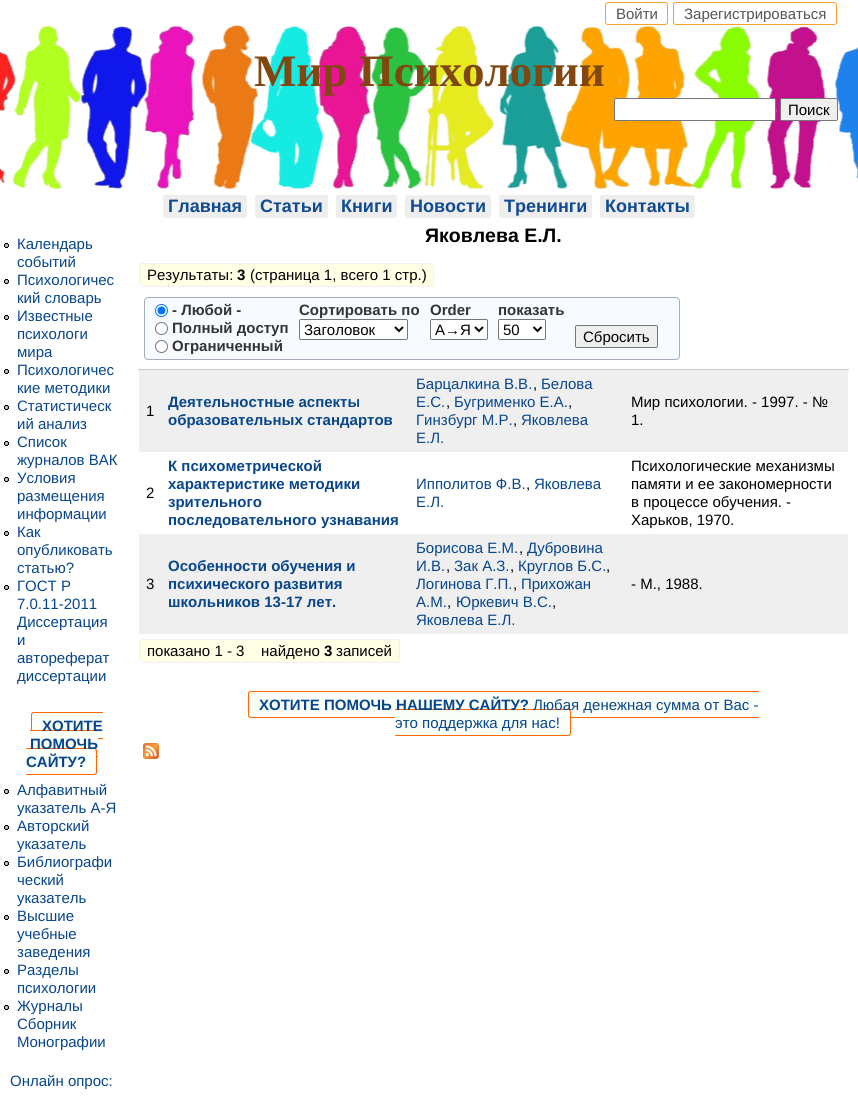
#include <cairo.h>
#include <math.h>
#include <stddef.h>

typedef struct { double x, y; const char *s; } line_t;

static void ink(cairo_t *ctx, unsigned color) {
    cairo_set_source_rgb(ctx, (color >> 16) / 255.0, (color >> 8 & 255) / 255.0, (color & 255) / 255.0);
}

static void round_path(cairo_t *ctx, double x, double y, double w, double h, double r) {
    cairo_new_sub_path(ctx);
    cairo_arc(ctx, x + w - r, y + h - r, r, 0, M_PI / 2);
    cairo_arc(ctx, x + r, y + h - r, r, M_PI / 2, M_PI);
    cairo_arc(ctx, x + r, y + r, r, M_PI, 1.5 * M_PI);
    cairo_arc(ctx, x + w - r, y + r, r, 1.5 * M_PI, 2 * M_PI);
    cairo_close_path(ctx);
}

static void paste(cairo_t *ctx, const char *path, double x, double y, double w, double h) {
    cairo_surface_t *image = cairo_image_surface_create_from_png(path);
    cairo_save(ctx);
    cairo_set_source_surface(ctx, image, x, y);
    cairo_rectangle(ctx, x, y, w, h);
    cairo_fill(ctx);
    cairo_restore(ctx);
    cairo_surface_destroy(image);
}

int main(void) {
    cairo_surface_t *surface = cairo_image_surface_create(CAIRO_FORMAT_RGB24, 858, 1098);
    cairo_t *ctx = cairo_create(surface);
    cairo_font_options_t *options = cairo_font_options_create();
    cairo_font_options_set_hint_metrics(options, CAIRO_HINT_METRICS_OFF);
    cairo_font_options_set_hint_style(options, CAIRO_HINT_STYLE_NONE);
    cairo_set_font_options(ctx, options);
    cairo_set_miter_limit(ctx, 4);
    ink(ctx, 0xFFFFFF);
    cairo_paint(ctx);
    round_path(ctx, 605.5, 2.5, 62, 22, 2.5);
    ink(ctx, 0xF7A12A);
    cairo_set_line_width(ctx, 1);
    cairo_stroke(ctx);
    cairo_select_font_face(ctx, "Liberation Sans", CAIRO_FONT_SLANT_NORMAL, CAIRO_FONT_WEIGHT_NORMAL);
    cairo_set_font_size(ctx, 15);
    ink(ctx, 0x555555);
    cairo_move_to(ctx, 616, 19);
    cairo_show_text(ctx, "Войти");
    round_path(ctx, 673.5, 2.5, 163, 22, 2.5);
    ink(ctx, 0xF7A12A);
    cairo_stroke(ctx);
    ink(ctx, 0x555555);
    cairo_move_to(ctx, 684, 19);
    cairo_show_text(ctx, "Зарегистрироваться");
    paste(ctx, "media/1.png", 0, 25, 858, 164);
    cairo_select_font_face(ctx, "Liberation Serif", CAIRO_FONT_SLANT_NORMAL, CAIRO_FONT_WEIGHT_BOLD);
    cairo_set_font_size(ctx, 45);
    ink(ctx, 0x814711);
    cairo_move_to(ctx, 254, 86);
    cairo_show_text(ctx, "Мир Психологии");
    ink(ctx, 0xFFFFFF);
    round_path(ctx, 614.5, 98.5, 161, 22, 1.5);
    cairo_fill_preserve(ctx);
    ink(ctx, 0x767676);
    cairo_stroke(ctx);
    ink(ctx, 0xEFEFEF);
    round_path(ctx, 780.5, 98.5, 57, 22, 1.5);
    cairo_fill_preserve(ctx);
    ink(ctx, 0x767676);
    cairo_stroke(ctx);
    cairo_select_font_face(ctx, "Liberation Sans", CAIRO_FONT_SLANT_NORMAL, CAIRO_FONT_WEIGHT_NORMAL);
    cairo_set_font_size(ctx, 15);
    ink(ctx, 0x000000);
    cairo_move_to(ctx, 788, 115);
    cairo_show_text(ctx, "Поиск");
    ink(ctx, 0xEEEEEE);
    round_path(ctx, 163, 195, 84, 23, 2);
    cairo_fill(ctx);
    cairo_select_font_face(ctx, "Liberation Sans", CAIRO_FONT_SLANT_NORMAL, CAIRO_FONT_WEIGHT_BOLD);
    cairo_set_font_size(ctx, 18);
    ink(ctx, 0x104A91);
    cairo_move_to(ctx, 168, 212);
    cairo_show_text(ctx, "Главная");
    ink(ctx, 0xEEEEEE);
    round_path(ctx, 255, 195, 73, 23, 2);
    cairo_fill(ctx);
    ink(ctx, 0x104A91);
    cairo_move_to(ctx, 260, 212);
    cairo_show_text(ctx, "Статьи");
    ink(ctx, 0xEEEEEE);
    round_path(ctx, 336, 195, 61, 23, 2);
    cairo_fill(ctx);
    ink(ctx, 0x104A91);
    cairo_move_to(ctx, 341, 212);
    cairo_show_text(ctx, "Книги");
    ink(ctx, 0xEEEEEE);
    round_path(ctx, 405, 195, 86, 23, 2);
    cairo_fill(ctx);
    ink(ctx, 0x104A91);
    cairo_move_to(ctx, 410, 212);
    cairo_show_text(ctx, "Новости");
    ink(ctx, 0xEEEEEE);
    round_path(ctx, 499, 195, 93, 23, 2);
    cairo_fill(ctx);
    ink(ctx, 0x104A91);
    cairo_move_to(ctx, 504, 212);
    cairo_show_text(ctx, "Тренинги");
    ink(ctx, 0xEEEEEE);
    round_path(ctx, 600, 195, 95, 23, 2);
    cairo_fill(ctx);
    ink(ctx, 0x104A91);
    cairo_move_to(ctx, 605, 212);
    cairo_show_text(ctx, "Контакты");
    paste(ctx, "media/2.png", 4, 243, 5, 5);
    cairo_select_font_face(ctx, "Liberation Sans", CAIRO_FONT_SLANT_NORMAL, CAIRO_FONT_WEIGHT_NORMAL);
    cairo_set_font_size(ctx, 15);
    ink(ctx, 0x07458C);
    cairo_move_to(ctx, 17, 249);
    cairo_show_text(ctx, "Календарь");
    cairo_move_to(ctx, 17, 267);
    cairo_show_text(ctx, "событий");
    paste(ctx, "media/2.png", 4, 279, 5, 5);
    cairo_move_to(ctx, 17, 285);
    cairo_show_text(ctx, "Психологичес");
    cairo_move_to(ctx, 17, 303);
    cairo_show_text(ctx, "кий словарь");
    paste(ctx, "media/2.png", 4, 315, 5, 5);
    {
        static const line_t items[] = {
            {17, 321, "Известные"},
            {17, 339, "психологи"},
            {17, 357, "мира"},
        };
        for (size_t i = 0; i < sizeof items / sizeof *items; i++) {
            cairo_move_to(ctx, items[i].x, items[i].y);
            cairo_show_text(ctx, items[i].s);
        }
    }
    paste(ctx, "media/2.png", 4, 369, 5, 5);
    cairo_move_to(ctx, 17, 375);
    cairo_show_text(ctx, "Психологичес");
    cairo_move_to(ctx, 17, 393);
    cairo_show_text(ctx, "кие методики");
    paste(ctx, "media/2.png", 4, 405, 5, 5);
    cairo_move_to(ctx, 17, 411);
    cairo_show_text(ctx, "Статистическ");
    cairo_move_to(ctx, 17, 429);
    cairo_show_text(ctx, "ий анализ");
    paste(ctx, "media/2.png", 4, 441, 5, 5);
    cairo_move_to(ctx, 17, 447);
    cairo_show_text(ctx, "Список");
    cairo_move_to(ctx, 17, 465);
    cairo_show_text(ctx, "журналов ВАК");
    paste(ctx, "media/2.png", 4, 477, 5, 5);
    {
        static const line_t items[] = {
            {17, 483, "Условия"},
            {17, 501, "размещения"},
            {17, 519, "информации"},
        };
        for (size_t i = 0; i < sizeof items / sizeof *items; i++) {
            cairo_move_to(ctx, items[i].x, items[i].y);
            cairo_show_text(ctx, items[i].s);
        }
    }
    paste(ctx, "media/2.png", 4, 531, 5, 5);
    {
        static const line_t items[] = {
            {17, 537, "Как"},
            {17, 555, "опубликовать"},
            {17, 573, "статью?"},
        };
        for (size_t i = 0; i < sizeof items / sizeof *items; i++) {
            cairo_move_to(ctx, items[i].x, items[i].y);
            cairo_show_text(ctx, items[i].s);
        }
    }
    paste(ctx, "media/2.png", 4, 585, 5, 5);
    {
        static const line_t items[] = {
            {17, 591, "ГОСТ Р"},
            {17, 609, "7.0.11-2011"},
            {17, 627, "Диссертация"},
            {17, 645, "и"},
            {17, 663, "автореферат"},
            {17, 681, "диссертации"},
        };
        for (size_t i = 0; i < sizeof items / sizeof *items; i++) {
            cairo_move_to(ctx, items[i].x, items[i].y);
            cairo_show_text(ctx, items[i].s);
        }
    }
    ink(ctx, 0xF9FFF8);
    cairo_new_path(ctx);
    cairo_move_to(ctx, 34, 712);
    cairo_line_to(ctx, 103, 712);
    cairo_line_to(ctx, 103, 739);
    cairo_line_to(ctx, 34, 739);
    cairo_curve_to(ctx, 32.5, 739, 31, 737.5, 31, 736);
    cairo_line_to(ctx, 31, 715);
    cairo_curve_to(ctx, 31, 713.5, 32.5, 712, 34, 712);
    cairo_close_path(ctx);
    cairo_fill(ctx);
    ink(ctx, 0xFF6600);
    cairo_set_fill_rule(ctx, CAIRO_FILL_RULE_EVEN_ODD);
    cairo_new_path(ctx);
    cairo_move_to(ctx, 34, 712);
    cairo_line_to(ctx, 103, 712);
    cairo_line_to(ctx, 103, 739);
    cairo_line_to(ctx, 34, 739);
    cairo_curve_to(ctx, 32, 739, 31, 738, 31, 736);
    cairo_line_to(ctx, 31, 715);
    cairo_curve_to(ctx, 31, 713, 32, 712, 34, 712);
    cairo_close_path(ctx);
    cairo_move_to(ctx, 34, 713);
    cairo_line_to(ctx, 103, 713);
    cairo_line_to(ctx, 103, 738);
    cairo_line_to(ctx, 34, 738);
    cairo_curve_to(ctx, 33, 738, 32, 737, 32, 736);
    cairo_line_to(ctx, 32, 715);
    cairo_curve_to(ctx, 32, 714, 33, 713, 34, 713);
    cairo_close_path(ctx);
    cairo_fill(ctx);
    cairo_rectangle(ctx, 30, 730, 68, 1);
    cairo_fill(ctx);
    ink(ctx, 0xF9FFF8);
    cairo_rectangle(ctx, 30, 731, 68, 25);
    cairo_fill(ctx);
    cairo_select_font_face(ctx, "Liberation Sans", CAIRO_FONT_SLANT_NORMAL, CAIRO_FONT_WEIGHT_BOLD);
    ink(ctx, 0x07458C);
    cairo_move_to(ctx, 42, 731);
    cairo_show_text(ctx, "ХОТИТЕ");
    ink(ctx, 0xF9FFF8);
    cairo_new_path(ctx);
    cairo_move_to(ctx, 26, 748);
    cairo_line_to(ctx, 94, 748);
    cairo_curve_to(ctx, 95.5, 748, 97, 749.5, 97, 751);
    cairo_line_to(ctx, 97, 772);
    cairo_curve_to(ctx, 97, 773.5, 95.5, 775, 94, 775);
    cairo_line_to(ctx, 26, 775);
    cairo_close_path(ctx);
    cairo_fill(ctx);
    ink(ctx, 0xFF6600);
    cairo_new_path(ctx);
    cairo_move_to(ctx, 26, 748);
    cairo_line_to(ctx, 94, 748);
    cairo_curve_to(ctx, 96, 748, 97, 749, 97, 751);
    cairo_line_to(ctx, 97, 772);
    cairo_curve_to(ctx, 97, 774, 96, 775, 94, 775);
    cairo_line_to(ctx, 26, 775);
    cairo_close_path(ctx);
    cairo_move_to(ctx, 26, 749);
    cairo_line_to(ctx, 94, 749);
    cairo_curve_to(ctx, 95, 749, 96, 750, 96, 751);
    cairo_line_to(ctx, 96, 772);
    cairo_curve_to(ctx, 96, 773, 95, 774, 94, 774);
    cairo_line_to(ctx, 26, 774);
    cairo_close_path(ctx);
    cairo_fill(ctx);
    ink(ctx, 0x07458C);
    cairo_move_to(ctx, 30, 749);
    cairo_show_text(ctx, "ПОМОЧЬ");
    cairo_move_to(ctx, 26, 767);
    cairo_show_text(ctx, "САЙТУ?");
    ink(ctx, 0xFF6600);
    cairo_rectangle(ctx, 97, 756, 1, 1);
    cairo_fill(ctx);
    paste(ctx, "media/2.png", 4, 789, 5, 5);
    cairo_select_font_face(ctx, "Liberation Sans", CAIRO_FONT_SLANT_NORMAL, CAIRO_FONT_WEIGHT_NORMAL);
    ink(ctx, 0x07458C);
    cairo_move_to(ctx, 17, 795);
    cairo_show_text(ctx, "Алфавитный");
    cairo_move_to(ctx, 17, 813);
    cairo_show_text(ctx, "указатель A-Я");
    paste(ctx, "media/2.png", 4, 825, 5, 5);
    cairo_move_to(ctx, 17, 831);
    cairo_show_text(ctx, "Авторский");
    cairo_move_to(ctx, 17, 849);
    cairo_show_text(ctx, "указатель");
    paste(ctx, "media/2.png", 4, 861, 5, 5);
    {
        static const line_t items[] = {
            {17, 867, "Библиографи"},
            {17, 885, "ческий"},
            {17, 903, "указатель"},
        };
        for (size_t i = 0; i < sizeof items / sizeof *items; i++) {
            cairo_move_to(ctx, items[i].x, items[i].y);
            cairo_show_text(ctx, items[i].s);
        }
    }
    paste(ctx, "media/2.png", 4, 915, 5, 5);
    {
        static const line_t items[] = {
            {17, 921, "Высшие"},
            {17, 939, "учебные"},
            {17, 957, "заведения"},
        };
        for (size_t i = 0; i < sizeof items / sizeof *items; i++) {
            cairo_move_to(ctx, items[i].x, items[i].y);
            cairo_show_text(ctx, items[i].s);
        }
    }
    paste(ctx, "media/2.png", 4, 969, 5, 5);
    cairo_move_to(ctx, 17, 975);
    cairo_show_text(ctx, "Разделы");
    cairo_move_to(ctx, 17, 993);
    cairo_show_text(ctx, "психологии");
    paste(ctx, "media/2.png", 4, 1005, 5, 5);
    {
        static const line_t items[] = {
            {17, 1011, "Журналы"},
            {17, 1029, "Сборник"},
            {17, 1047, "Монографии"},
            {10, 1086, "Онлайн опрос:"},
        };
        for (size_t i = 0; i < sizeof items / sizeof *items; i++) {
            cairo_move_to(ctx, items[i].x, items[i].y);
            cairo_show_text(ctx, items[i].s);
        }
    }
    cairo_select_font_face(ctx, "Liberation Sans", CAIRO_FONT_SLANT_NORMAL, CAIRO_FONT_WEIGHT_BOLD);
    cairo_set_font_size(ctx, 19.5);
    ink(ctx, 0x000000);
    cairo_move_to(ctx, 425, 242);
    cairo_show_text(ctx, "Яковлева Е.Л.");
    ink(ctx, 0xFFFFE5);
    round_path(ctx, 139.5, 263.5, 294, 23, 2.5);
    cairo_fill_preserve(ctx);
    ink(ctx, 0xF1F1F1);
    cairo_stroke(ctx);
    cairo_select_font_face(ctx, "Liberation Sans", CAIRO_FONT_SLANT_NORMAL, CAIRO_FONT_WEIGHT_NORMAL);
    cairo_set_font_size(ctx, 15);
    ink(ctx, 0x000000);
    cairo_move_to(ctx, 147, 280);
    cairo_show_text(ctx, "Результаты:");
    cairo_select_font_face(ctx, "Liberation Sans", CAIRO_FONT_SLANT_NORMAL, CAIRO_FONT_WEIGHT_BOLD);
    cairo_move_to(ctx, 237, 280);
    cairo_show_text(ctx, "3");
    cairo_select_font_face(ctx, "Liberation Sans", CAIRO_FONT_SLANT_NORMAL, CAIRO_FONT_WEIGHT_NORMAL);
    cairo_move_to(ctx, 250, 280);
    cairo_show_text(ctx, "(страница 1, всего 1 стр.)");
    ink(ctx, 0xF7FBFF);
    round_path(ctx, 144.5, 297.5, 535, 62, 3.5);
    cairo_fill_preserve(ctx);
    ink(ctx, 0xA2AEBF);
    cairo_stroke(ctx);
    ink(ctx, 0xFFFFFF);
    cairo_arc(ctx, 161.5, 310.5, 6, 0, 2 * M_PI);
    cairo_fill_preserve(ctx);
    ink(ctx, 0x0075FF);
    cairo_stroke(ctx);
    cairo_arc(ctx, 161.5, 310.5, 4, 0, 2 * M_PI);
    cairo_fill(ctx);
    cairo_select_font_face(ctx, "Liberation Sans", CAIRO_FONT_SLANT_NORMAL, CAIRO_FONT_WEIGHT_BOLD);
    ink(ctx, 0x333333);
    cairo_move_to(ctx, 172, 315);
    cairo_show_text(ctx, "- Любой -");
    ink(ctx, 0xFFFFFF);
    cairo_new_path(ctx);
    cairo_arc(ctx, 161.5, 328.5, 6, 0, 2 * M_PI);
    cairo_fill_preserve(ctx);
    ink(ctx, 0x767676);
    cairo_stroke(ctx);
    ink(ctx, 0x333333);
    cairo_move_to(ctx, 172, 333);
    cairo_show_text(ctx, "Полный доступ");
    ink(ctx, 0xFFFFFF);
    cairo_new_path(ctx);
    cairo_arc(ctx, 161.5, 346.5, 6, 0, 2 * M_PI);
    cairo_fill_preserve(ctx);
    ink(ctx, 0x767676);
    cairo_stroke(ctx);
    ink(ctx, 0x333333);
    cairo_move_to(ctx, 172, 351);
    cairo_show_text(ctx, "Ограниченный");
    cairo_move_to(ctx, 299, 315);
    cairo_show_text(ctx, "Сортировать по");
    ink(ctx, 0xFFFFFF);
    round_path(ctx, 299.5, 319.5, 108, 20, 1.5);
    cairo_fill_preserve(ctx);
    ink(ctx, 0x767676);
    cairo_stroke(ctx);
    cairo_new_path(ctx);
    cairo_move_to(ctx, 395, 327);
    cairo_line_to(ctx, 399, 331);
    cairo_line_to(ctx, 403, 327);
    ink(ctx, 0x000000);
    cairo_set_line_width(ctx, 2);
    cairo_stroke(ctx);
    cairo_select_font_face(ctx, "Liberation Sans", CAIRO_FONT_SLANT_NORMAL, CAIRO_FONT_WEIGHT_NORMAL);
    cairo_move_to(ctx, 304, 335);
    cairo_show_text(ctx, "Заголовок");
    cairo_select_font_face(ctx, "Liberation Sans", CAIRO_FONT_SLANT_NORMAL, CAIRO_FONT_WEIGHT_BOLD);
    ink(ctx, 0x333333);
    cairo_move_to(ctx, 430, 315);
    cairo_show_text(ctx, "Order");
    ink(ctx, 0xFFFFFF);
    round_path(ctx, 430.5, 319.5, 57, 20, 1.5);
    cairo_fill_preserve(ctx);
    ink(ctx, 0x767676);
    cairo_set_line_width(ctx, 1);
    cairo_stroke(ctx);
    cairo_new_path(ctx);
    cairo_move_to(ctx, 475, 327);
    cairo_line_to(ctx, 479, 331);
    cairo_line_to(ctx, 483, 327);
    ink(ctx, 0x000000);
    cairo_set_line_width(ctx, 2);
    cairo_stroke(ctx);
    cairo_select_font_face(ctx, "Liberation Sans", CAIRO_FONT_SLANT_NORMAL, CAIRO_FONT_WEIGHT_NORMAL);
    cairo_move_to(ctx, 435, 335);
    cairo_show_text(ctx, "А→Я");
    cairo_select_font_face(ctx, "Liberation Sans", CAIRO_FONT_SLANT_NORMAL, CAIRO_FONT_WEIGHT_BOLD);
    ink(ctx, 0x333333);
    cairo_move_to(ctx, 498, 315);
    cairo_show_text(ctx, "показать");
    ink(ctx, 0xFFFFFF);
    round_path(ctx, 498.5, 319.5, 47, 20, 1.5);
    cairo_fill_preserve(ctx);
    ink(ctx, 0x767676);
    cairo_set_line_width(ctx, 1);
    cairo_stroke(ctx);
    cairo_new_path(ctx);
    cairo_move_to(ctx, 533.5, 327);
    cairo_line_to(ctx, 537.5, 331);
    cairo_line_to(ctx, 541.5, 327);
    ink(ctx, 0x000000);
    cairo_set_line_width(ctx, 2);
    cairo_stroke(ctx);
    cairo_select_font_face(ctx, "Liberation Sans", CAIRO_FONT_SLANT_NORMAL, CAIRO_FONT_WEIGHT_NORMAL);
    cairo_move_to(ctx, 503, 335);
    cairo_show_text(ctx, "50");
    ink(ctx, 0xEFEFEF);
    round_path(ctx, 575.5, 325.5, 82, 22, 1.5);
    cairo_fill_preserve(ctx);
    ink(ctx, 0x767676);
    cairo_set_line_width(ctx, 1);
    cairo_stroke(ctx);
    ink(ctx, 0x000000);
    cairo_move_to(ctx, 583, 342);
    cairo_show_text(ctx, "Сбросить");
    ink(ctx, 0xCCCCCC);
    cairo_rectangle(ctx, 138, 369, 711, 1);
    cairo_fill(ctx);
    ink(ctx, 0xEFEFEF);
    cairo_rectangle(ctx, 139, 370, 709, 82);
    cairo_fill(ctx);
    ink(ctx, 0x000000);
    cairo_move_to(ctx, 146, 416);
    cairo_show_text(ctx, "1");
    cairo_select_font_face(ctx, "Liberation Sans", CAIRO_FONT_SLANT_NORMAL, CAIRO_FONT_WEIGHT_BOLD);
    ink(ctx, 0x07458C);
    cairo_move_to(ctx, 168, 407);
    cairo_show_text(ctx, "Деятельностные аспекты");
    cairo_move_to(ctx, 168, 425);
    cairo_show_text(ctx, "образовательных стандартов");
    cairo_select_font_face(ctx, "Liberation Sans", CAIRO_FONT_SLANT_NORMAL, CAIRO_FONT_WEIGHT_NORMAL);
    cairo_move_to(ctx, 416, 389);
    cairo_show_text(ctx, "Барцалкина В.В.");
    ink(ctx, 0x000000);
    cairo_move_to(ctx, 533, 389);
    cairo_show_text(ctx, ",");
    ink(ctx, 0x07458C);
    cairo_move_to(ctx, 541, 389);
    cairo_show_text(ctx, "Белова");
    cairo_move_to(ctx, 416, 407);
    cairo_show_text(ctx, "Е.С.");
    ink(ctx, 0x000000);
    cairo_move_to(ctx, 446, 407);
    cairo_show_text(ctx, ",");
    ink(ctx, 0x07458C);
    cairo_move_to(ctx, 454, 407);
    cairo_show_text(ctx, "Бугрименко Е.А.");
    ink(ctx, 0x000000);
    cairo_move_to(ctx, 568, 407);
    cairo_show_text(ctx, ",");
    ink(ctx, 0x07458C);
    cairo_move_to(ctx, 416, 425);
    cairo_show_text(ctx, "Гинзбург М.Р.");
    ink(ctx, 0x000000);
    cairo_move_to(ctx, 513, 425);
    cairo_show_text(ctx, ",");
    ink(ctx, 0x07458C);
    cairo_move_to(ctx, 521, 425);
    cairo_show_text(ctx, "Яковлева");
    cairo_move_to(ctx, 416, 443);
    cairo_show_text(ctx, "Е.Л.");
    ink(ctx, 0x000000);
    {
        static const line_t items[] = {
            {631, 407, "Мир психологии. - 1997. - №"},
            {631, 425, "1."},
            {146, 498, "2"},
        };
        for (size_t i = 0; i < sizeof items / sizeof *items; i++) {
            cairo_move_to(ctx, items[i].x, items[i].y);
            cairo_show_text(ctx, items[i].s);
        }
    }
    cairo_select_font_face(ctx, "Liberation Sans", CAIRO_FONT_SLANT_NORMAL, CAIRO_FONT_WEIGHT_BOLD);
    ink(ctx, 0x07458C);
    {
        static const line_t items[] = {
            {168, 471, "К психометрической"},
            {168, 489, "характеристике методики"},
            {168, 507, "зрительного"},
            {168, 525, "последовательного узнавания"},
        };
        for (size_t i = 0; i < sizeof items / sizeof *items; i++) {
            cairo_move_to(ctx, items[i].x, items[i].y);
            cairo_show_text(ctx, items[i].s);
        }
    }
    cairo_select_font_face(ctx, "Liberation Sans", CAIRO_FONT_SLANT_NORMAL, CAIRO_FONT_WEIGHT_NORMAL);
    cairo_move_to(ctx, 416, 489);
    cairo_show_text(ctx, "Ипполитов Ф.В.");
    ink(ctx, 0x000000);
    cairo_move_to(ctx, 526, 489);
    cairo_show_text(ctx, ",");
    ink(ctx, 0x07458C);
    cairo_move_to(ctx, 534, 489);
    cairo_show_text(ctx, "Яковлева");
    cairo_move_to(ctx, 416, 507);
    cairo_show_text(ctx, "Е.Л.");
    ink(ctx, 0x000000);
    {
        static const line_t items[] = {
            {631, 471, "Психологические механизмы"},
            {631, 489, "памяти и ее закономерности"},
            {631, 507, "в процессе обучения. -"},
            {631, 525, "Харьков, 1970."},
        };
        for (size_t i = 0; i < sizeof items / sizeof *items; i++) {
            cairo_move_to(ctx, items[i].x, items[i].y);
            cairo_show_text(ctx, items[i].s);
        }
    }
    ink(ctx, 0xEFEFEF);
    cairo_rectangle(ctx, 139, 534, 709, 100);
    cairo_fill(ctx);
    ink(ctx, 0x000000);
    cairo_move_to(ctx, 146, 589);
    cairo_show_text(ctx, "3");
    cairo_select_font_face(ctx, "Liberation Sans", CAIRO_FONT_SLANT_NORMAL, CAIRO_FONT_WEIGHT_BOLD);
    ink(ctx, 0x07458C);
    {
        static const line_t items[] = {
            {168, 571, "Особенности обучения и"},
            {168, 589, "психического развития"},
            {168, 607, "школьников 13-17 лет."},
        };
        for (size_t i = 0; i < sizeof items / sizeof *items; i++) {
            cairo_move_to(ctx, items[i].x, items[i].y);
            cairo_show_text(ctx, items[i].s);
        }
    }
    cairo_select_font_face(ctx, "Liberation Sans", CAIRO_FONT_SLANT_NORMAL, CAIRO_FONT_WEIGHT_NORMAL);
    cairo_move_to(ctx, 416, 553);
    cairo_show_text(ctx, "Борисова Е.М.");
    ink(ctx, 0x000000);
    cairo_move_to(ctx, 519, 553);
    cairo_show_text(ctx, ",");
    ink(ctx, 0x07458C);
    cairo_move_to(ctx, 527, 553);
    cairo_show_text(ctx, "Дубровина");
    cairo_move_to(ctx, 416, 571);
    cairo_show_text(ctx, "И.В.");
    ink(ctx, 0x000000);
    cairo_move_to(ctx, 446, 571);
    cairo_show_text(ctx, ",");
    ink(ctx, 0x07458C);
    cairo_move_to(ctx, 454, 571);
    cairo_show_text(ctx, "Зак А.З.");
    ink(ctx, 0x000000);
    cairo_move_to(ctx, 510, 571);
    cairo_show_text(ctx, ",");
    ink(ctx, 0x07458C);
    cairo_move_to(ctx, 518, 571);
    cairo_show_text(ctx, "Круглов Б.С.");
    ink(ctx, 0x000000);
    cairo_move_to(ctx, 606, 571);
    cairo_show_text(ctx, ",");
    ink(ctx, 0x07458C);
    cairo_move_to(ctx, 416, 589);
    cairo_show_text(ctx, "Логинова Г.П.");
    ink(ctx, 0x000000);
    cairo_move_to(ctx, 513, 589);
    cairo_show_text(ctx, ",");
    ink(ctx, 0x07458C);
    cairo_move_to(ctx, 521, 589);
    cairo_show_text(ctx, "Прихожан");
    cairo_move_to(ctx, 416, 607);
    cairo_show_text(ctx, "А.М.");
    ink(ctx, 0x000000);
    cairo_move_to(ctx, 447, 607);
    cairo_show_text(ctx, ",");
    ink(ctx, 0x07458C);
    cairo_move_to(ctx, 456, 607);
    cairo_show_text(ctx, "Юркевич В.С.");
    ink(ctx, 0x000000);
    cairo_move_to(ctx, 552, 607);
    cairo_show_text(ctx, ",");
    ink(ctx, 0x07458C);
    cairo_move_to(ctx, 416, 625);
    cairo_show_text(ctx, "Яковлева Е.Л.");
    ink(ctx, 0x000000);
    cairo_move_to(ctx, 631, 589);
    cairo_show_text(ctx, "- М., 1988.");
    ink(ctx, 0xFFFFE5);
    round_path(ctx, 139.5, 639.5, 260, 23, 2.5);
    cairo_fill_preserve(ctx);
    ink(ctx, 0xF1F1F1);
    cairo_stroke(ctx);
    ink(ctx, 0x000000);
    cairo_move_to(ctx, 147, 656);
    cairo_show_text(ctx, "показано 1 - 3    найдено");
    cairo_select_font_face(ctx, "Liberation Sans", CAIRO_FONT_SLANT_NORMAL, CAIRO_FONT_WEIGHT_BOLD);
    cairo_move_to(ctx, 324, 656);
    cairo_show_text(ctx, "3");
    cairo_select_font_face(ctx, "Liberation Sans", CAIRO_FONT_SLANT_NORMAL, CAIRO_FONT_WEIGHT_NORMAL);
    cairo_move_to(ctx, 336, 656);
    cairo_show_text(ctx, "записей");
    ink(ctx, 0xF9FFF8);
    cairo_new_path(ctx);
    cairo_move_to(ctx, 251, 691);
    cairo_line_to(ctx, 529, 691);
    cairo_line_to(ctx, 529, 718);
    cairo_line_to(ctx, 251, 718);
    cairo_curve_to(ctx, 249.5, 718, 248, 716.5, 248, 715);
    cairo_line_to(ctx, 248, 694);
    cairo_curve_to(ctx, 248, 692.5, 249.5, 691, 251, 691);
    cairo_close_path(ctx);
    cairo_fill(ctx);
    ink(ctx, 0xFF6600);
    cairo_new_path(ctx);
    cairo_move_to(ctx, 251, 691);
    cairo_line_to(ctx, 529, 691);
    cairo_line_to(ctx, 529, 718);
    cairo_line_to(ctx, 251, 718);
    cairo_curve_to(ctx, 249, 718, 248, 717, 248, 715);
    cairo_line_to(ctx, 248, 694);
    cairo_curve_to(ctx, 248, 692, 249, 691, 251, 691);
    cairo_close_path(ctx);
    cairo_move_to(ctx, 251, 692);
    cairo_line_to(ctx, 529, 692);
    cairo_line_to(ctx, 529, 717);
    cairo_line_to(ctx, 251, 717);
    cairo_curve_to(ctx, 250, 717, 249, 716, 249, 715);
    cairo_line_to(ctx, 249, 694);
    cairo_curve_to(ctx, 249, 693, 250, 692, 251, 692);
    cairo_close_path(ctx);
    cairo_fill(ctx);
    ink(ctx, 0xF9FFF8);
    cairo_rectangle(ctx, 529, 692, 230, 25);
    cairo_fill(ctx);
    cairo_new_path(ctx);
    cairo_move_to(ctx, 395, 709);
    cairo_line_to(ctx, 568, 709);
    cairo_curve_to(ctx, 569.5, 709, 571, 710.5, 571, 712);
    cairo_line_to(ctx, 571, 733);
    cairo_curve_to(ctx, 571, 734.5, 569.5, 736, 568, 736);
    cairo_line_to(ctx, 395, 736);
    cairo_close_path(ctx);
    cairo_fill(ctx);
    ink(ctx, 0xFF6600);
    cairo_new_path(ctx);
    cairo_move_to(ctx, 395, 709);
    cairo_line_to(ctx, 568, 709);
    cairo_curve_to(ctx, 570, 709, 571, 710, 571, 712);
    cairo_line_to(ctx, 571, 733);
    cairo_curve_to(ctx, 571, 735, 570, 736, 568, 736);
    cairo_line_to(ctx, 395, 736);
    cairo_close_path(ctx);
    cairo_move_to(ctx, 395, 710);
    cairo_line_to(ctx, 568, 710);
    cairo_curve_to(ctx, 569, 710, 570, 711, 570, 712);
    cairo_line_to(ctx, 570, 733);
    cairo_curve_to(ctx, 570, 734, 569, 735, 568, 735);
    cairo_line_to(ctx, 395, 735);
    cairo_close_path(ctx);
    cairo_fill(ctx);
    cairo_select_font_face(ctx, "Liberation Sans", CAIRO_FONT_SLANT_NORMAL, CAIRO_FONT_WEIGHT_BOLD);
    ink(ctx, 0x07458C);
    cairo_move_to(ctx, 259, 710);
    cairo_show_text(ctx, "ХОТИТЕ ПОМОЧЬ НАШЕМУ САЙТУ?");
    ink(ctx, 0xFF6600);
    cairo_rectangle(ctx, 529, 691, 230, 1);
    cairo_fill(ctx);
    cairo_select_font_face(ctx, "Liberation Sans", CAIRO_FONT_SLANT_NORMAL, CAIRO_FONT_WEIGHT_NORMAL);
    ink(ctx, 0x07458C);
    cairo_move_to(ctx, 533, 710);
    cairo_show_text(ctx, "Любая денежная сумма от Вас -");
    ink(ctx, 0xFF6600);
    cairo_rectangle(ctx, 571, 717, 188, 1);
    cairo_fill(ctx);
    ink(ctx, 0x07458C);
    cairo_move_to(ctx, 395, 728);
    cairo_show_text(ctx, "это поддержка для нас!");
    paste(ctx, "media/3.png", 143, 743, 16, 16);
    cairo_surface_write_to_png(surface, "image.png");
    cairo_font_options_destroy(options);
    cairo_destroy(ctx);
    cairo_surface_destroy(surface);
    return 0;
}
